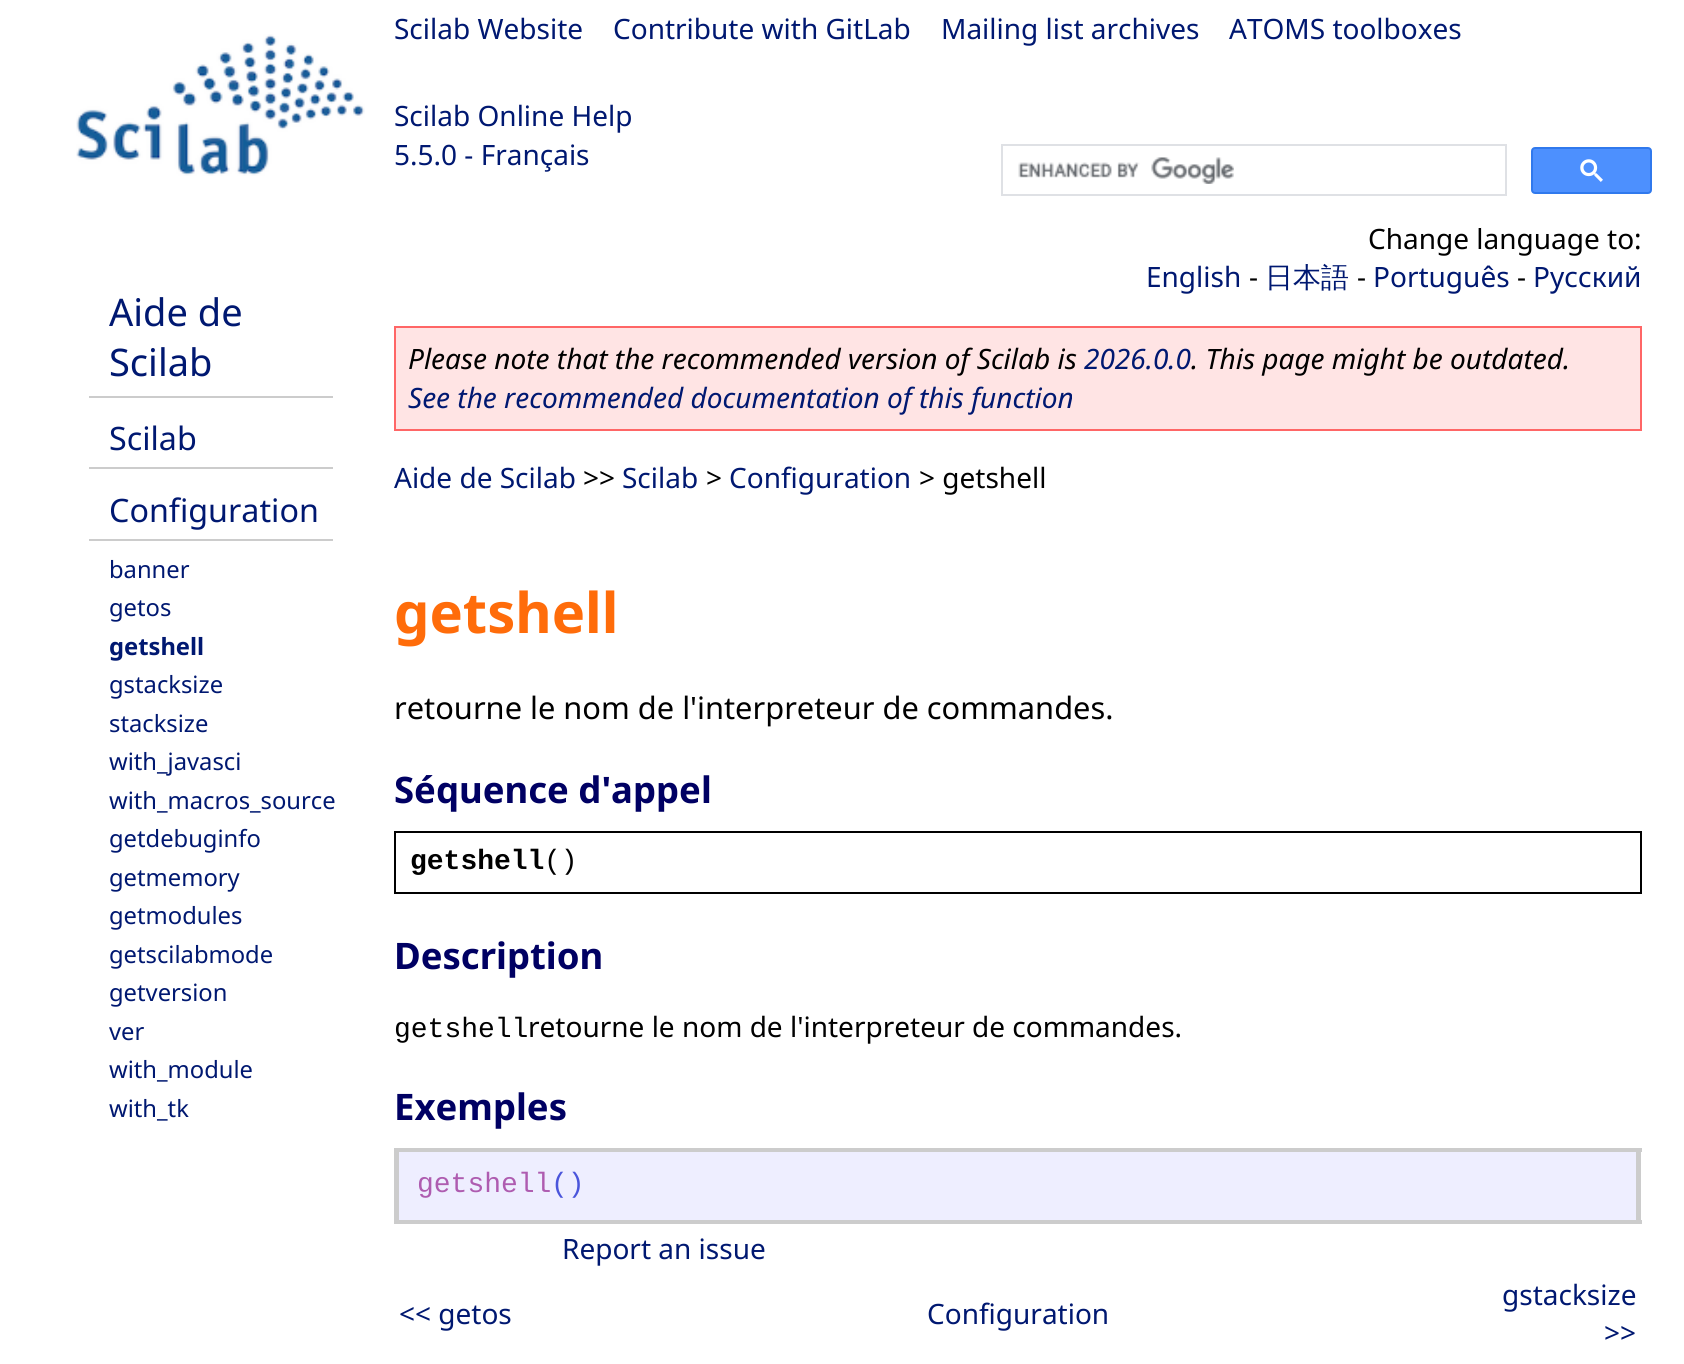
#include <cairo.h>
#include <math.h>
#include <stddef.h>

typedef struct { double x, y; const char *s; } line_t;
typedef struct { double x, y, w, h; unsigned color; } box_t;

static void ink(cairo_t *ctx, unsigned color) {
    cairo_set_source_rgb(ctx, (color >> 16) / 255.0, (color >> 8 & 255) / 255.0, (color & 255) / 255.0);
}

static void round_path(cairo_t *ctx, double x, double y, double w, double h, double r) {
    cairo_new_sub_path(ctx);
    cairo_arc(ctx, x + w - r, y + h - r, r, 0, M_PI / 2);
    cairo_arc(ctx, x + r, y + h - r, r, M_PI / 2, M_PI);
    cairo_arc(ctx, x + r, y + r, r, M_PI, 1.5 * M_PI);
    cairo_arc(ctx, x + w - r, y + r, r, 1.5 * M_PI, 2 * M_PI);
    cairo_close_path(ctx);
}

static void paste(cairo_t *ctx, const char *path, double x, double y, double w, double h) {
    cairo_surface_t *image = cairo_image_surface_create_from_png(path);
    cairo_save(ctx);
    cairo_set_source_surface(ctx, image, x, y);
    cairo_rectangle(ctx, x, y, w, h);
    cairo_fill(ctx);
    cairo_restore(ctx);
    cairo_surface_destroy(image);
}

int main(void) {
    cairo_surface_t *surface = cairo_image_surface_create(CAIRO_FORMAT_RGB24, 1684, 1364);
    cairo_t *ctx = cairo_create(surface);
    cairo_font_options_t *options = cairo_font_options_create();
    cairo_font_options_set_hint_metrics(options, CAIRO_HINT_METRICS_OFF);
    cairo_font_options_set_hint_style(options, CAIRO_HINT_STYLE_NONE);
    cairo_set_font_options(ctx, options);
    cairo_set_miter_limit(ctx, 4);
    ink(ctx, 0xFFFFFF);
    cairo_paint(ctx);
    paste(ctx, "media/1.png", 76, 34, 289, 142);
    cairo_select_font_face(ctx, "Noto Sans", CAIRO_FONT_SLANT_NORMAL, CAIRO_FONT_WEIGHT_NORMAL);
    cairo_set_font_size(ctx, 28);
    ink(ctx, 0x001871);
    {
        static const line_t items[] = {
            {394, 39, "Scilab Website"},
            {613, 39, "Contribute with GitLab"},
            {941, 39, "Mailing list archives"},
            {1229, 39, "ATOMS toolboxes"},
            {394, 126, "Scilab Online Help"},
            {394, 165, "5.5.0 - Français"},
        };
        for (size_t i = 0; i < sizeof items / sizeof *items; i++) {
            cairo_move_to(ctx, items[i].x, items[i].y);
            cairo_show_text(ctx, items[i].s);
        }
    }
    ink(ctx, 0x000000);
    cairo_move_to(ctx, 1368, 249);
    cairo_show_text(ctx, "Change language to:");
    ink(ctx, 0xFFFFFF);
    cairo_rectangle(ctx, 1387, 227, 94, 1);
    cairo_fill(ctx);
    cairo_rectangle(ctx, 1002, 145, 504, 50);
    ink(ctx, 0xDFE1E5);
    cairo_stroke(ctx);
    paste(ctx, "media/2.png", 1018, 157, 216, 27);
    ink(ctx, 0x4D90FE);
    round_path(ctx, 1532, 148, 119, 45, 3);
    cairo_fill_preserve(ctx);
    ink(ctx, 0x3079ED);
    cairo_stroke(ctx);
    paste(ctx, "media/3.png", 1580, 159, 23, 23);
    ink(ctx, 0xCCCCCC);
    cairo_rectangle(ctx, 89, 396, 244, 2);
    cairo_fill(ctx);
    cairo_set_font_size(ctx, 38);
    ink(ctx, 0x001871);
    cairo_move_to(ctx, 109, 326);
    cairo_show_text(ctx, "Aide de");
    cairo_move_to(ctx, 109, 376);
    cairo_show_text(ctx, "Scilab");
    ink(ctx, 0xCCCCCC);
    cairo_rectangle(ctx, 89, 467, 244, 2);
    cairo_fill(ctx);
    cairo_set_font_size(ctx, 32.25);
    ink(ctx, 0x001871);
    cairo_move_to(ctx, 109, 450);
    cairo_show_text(ctx, "Scilab");
    ink(ctx, 0xCCCCCC);
    cairo_rectangle(ctx, 89, 539, 244, 2);
    cairo_fill(ctx);
    ink(ctx, 0x001871);
    cairo_move_to(ctx, 109, 522);
    cairo_show_text(ctx, "Configuration");
    cairo_set_font_size(ctx, 23.75);
    cairo_move_to(ctx, 109, 578);
    cairo_show_text(ctx, "banner");
    cairo_move_to(ctx, 109, 616);
    cairo_show_text(ctx, "getos");
    cairo_select_font_face(ctx, "Noto Sans", CAIRO_FONT_SLANT_NORMAL, CAIRO_FONT_WEIGHT_BOLD);
    cairo_move_to(ctx, 109, 655);
    cairo_show_text(ctx, "getshell");
    cairo_select_font_face(ctx, "Noto Sans", CAIRO_FONT_SLANT_NORMAL, CAIRO_FONT_WEIGHT_NORMAL);
    {
        static const line_t items[] = {
            {109, 693, "gstacksize"},
            {109, 732, "stacksize"},
            {109, 770, "with_javasci"},
            {109, 809, "with_macros_source"},
            {109, 847, "getdebuginfo"},
            {109, 886, "getmemory"},
            {109, 924, "getmodules"},
            {109, 963, "getscilabmode"},
            {109, 1001, "getversion"},
            {109, 1040, "ver"},
            {109, 1078, "with_module"},
            {109, 1117, "with_tk"},
        };
        for (size_t i = 0; i < sizeof items / sizeof *items; i++) {
            cairo_move_to(ctx, items[i].x, items[i].y);
            cairo_show_text(ctx, items[i].s);
        }
    }
    cairo_set_font_size(ctx, 28);
    cairo_move_to(ctx, 1146, 287);
    cairo_show_text(ctx, "English");
    ink(ctx, 0x000000);
    cairo_move_to(ctx, 1249, 287);
    cairo_show_text(ctx, "-");
    cairo_select_font_face(ctx, "WenQuanYi Zen Hei Medium", CAIRO_FONT_SLANT_NORMAL, CAIRO_FONT_WEIGHT_NORMAL);
    ink(ctx, 0x001871);
    cairo_move_to(ctx, 1265, 287);
    cairo_show_text(ctx, "日本語");
    cairo_select_font_face(ctx, "Noto Sans", CAIRO_FONT_SLANT_NORMAL, CAIRO_FONT_WEIGHT_NORMAL);
    ink(ctx, 0x000000);
    cairo_move_to(ctx, 1357, 287);
    cairo_show_text(ctx, "-");
    ink(ctx, 0x001871);
    cairo_move_to(ctx, 1373, 287);
    cairo_show_text(ctx, "Português");
    ink(ctx, 0x000000);
    cairo_move_to(ctx, 1517, 287);
    cairo_show_text(ctx, "-");
    ink(ctx, 0x001871);
    cairo_move_to(ctx, 1533, 287);
    cairo_show_text(ctx, "Русский");
    ink(ctx, 0xFFE4E4);
    cairo_rectangle(ctx, 395, 327, 1246, 103);
    cairo_fill_preserve(ctx);
    ink(ctx, 0xFF6666);
    cairo_stroke(ctx);
    cairo_select_font_face(ctx, "Noto Sans", CAIRO_FONT_SLANT_ITALIC, CAIRO_FONT_WEIGHT_NORMAL);
    ink(ctx, 0x000000);
    cairo_move_to(ctx, 408, 369);
    cairo_show_text(ctx, "Please note that the recommended version of Scilab is");
    ink(ctx, 0x001871);
    cairo_move_to(ctx, 1084, 369);
    cairo_show_text(ctx, "2026.0.0");
    ink(ctx, 0x000000);
    cairo_move_to(ctx, 1191, 369);
    cairo_show_text(ctx, ". This page might be outdated.");
    ink(ctx, 0x001871);
    cairo_move_to(ctx, 408, 408);
    cairo_show_text(ctx, "See the recommended documentation of this function");
    cairo_select_font_face(ctx, "Noto Sans", CAIRO_FONT_SLANT_NORMAL, CAIRO_FONT_WEIGHT_NORMAL);
    cairo_move_to(ctx, 394, 488);
    cairo_show_text(ctx, "Aide de Scilab");
    ink(ctx, 0x000000);
    cairo_move_to(ctx, 583, 488);
    cairo_show_text(ctx, ">>");
    ink(ctx, 0x001871);
    cairo_move_to(ctx, 622, 488);
    cairo_show_text(ctx, "Scilab");
    ink(ctx, 0x000000);
    cairo_move_to(ctx, 706, 488);
    cairo_show_text(ctx, ">");
    ink(ctx, 0x001871);
    cairo_move_to(ctx, 729, 488);
    cairo_show_text(ctx, "Configuration");
    ink(ctx, 0x000000);
    cairo_move_to(ctx, 919, 488);
    cairo_show_text(ctx, "> getshell");
    cairo_select_font_face(ctx, "Noto Sans", CAIRO_FONT_SLANT_NORMAL, CAIRO_FONT_WEIGHT_BOLD);
    cairo_set_font_size(ctx, 56);
    ink(ctx, 0xFF6C0A);
    cairo_move_to(ctx, 394, 633);
    cairo_show_text(ctx, "getshell");
    cairo_select_font_face(ctx, "Noto Sans", CAIRO_FONT_SLANT_NORMAL, CAIRO_FONT_WEIGHT_NORMAL);
    cairo_set_font_size(ctx, 30.8);
    ink(ctx, 0x000000);
    cairo_move_to(ctx, 394, 719);
    cairo_show_text(ctx, "retourne le nom de l'interpreteur de commandes.");
    cairo_select_font_face(ctx, "Noto Sans", CAIRO_FONT_SLANT_NORMAL, CAIRO_FONT_WEIGHT_BOLD);
    cairo_set_font_size(ctx, 36.5);
    ink(ctx, 0x000063);
    cairo_move_to(ctx, 394, 803);
    cairo_show_text(ctx, "Séquence d'appel");
    cairo_rectangle(ctx, 395, 832, 1246, 61);
    ink(ctx, 0x000000);
    cairo_stroke(ctx);
    cairo_select_font_face(ctx, "Liberation Mono", CAIRO_FONT_SLANT_NORMAL, CAIRO_FONT_WEIGHT_BOLD);
    cairo_set_font_size(ctx, 28);
    cairo_move_to(ctx, 410, 869);
    cairo_show_text(ctx, "getshell");
    cairo_select_font_face(ctx, "Liberation Mono", CAIRO_FONT_SLANT_NORMAL, CAIRO_FONT_WEIGHT_NORMAL);
    cairo_move_to(ctx, 544, 869);
    cairo_show_text(ctx, "()");
    cairo_select_font_face(ctx, "Noto Sans", CAIRO_FONT_SLANT_NORMAL, CAIRO_FONT_WEIGHT_BOLD);
    cairo_set_font_size(ctx, 36.5);
    ink(ctx, 0x000063);
    cairo_move_to(ctx, 394, 969);
    cairo_show_text(ctx, "Description");
    cairo_select_font_face(ctx, "Liberation Mono", CAIRO_FONT_SLANT_NORMAL, CAIRO_FONT_WEIGHT_NORMAL);
    cairo_set_font_size(ctx, 28);
    ink(ctx, 0x000000);
    cairo_move_to(ctx, 394, 1037);
    cairo_show_text(ctx, "getshell");
    cairo_select_font_face(ctx, "Noto Sans", CAIRO_FONT_SLANT_NORMAL, CAIRO_FONT_WEIGHT_NORMAL);
    cairo_move_to(ctx, 528, 1037);
    cairo_show_text(ctx, "retourne le nom de l'interpreteur de commandes.");
    cairo_select_font_face(ctx, "Noto Sans", CAIRO_FONT_SLANT_NORMAL, CAIRO_FONT_WEIGHT_BOLD);
    cairo_set_font_size(ctx, 36.5);
    ink(ctx, 0x000063);
    cairo_move_to(ctx, 394, 1120);
    cairo_show_text(ctx, "Exemples");
    {
        static const box_t items[] = {
            {399, 1152, 1237, 68, 0xEEEEFF},
            {394, 1148, 1248, 4, 0xCCCCCC},
            {1636, 1148, 5, 75, 0xCCCCCC},
            {394, 1220, 1248, 4, 0xCCCCCC},
            {394, 1148, 5, 75, 0xCCCCCC},
        };
        for (size_t i = 0; i < sizeof items / sizeof *items; i++) {
            ink(ctx, items[i].color);
            cairo_rectangle(ctx, items[i].x, items[i].y, items[i].w, items[i].h);
            cairo_fill(ctx);
        }
    }
    cairo_select_font_face(ctx, "Liberation Mono", CAIRO_FONT_SLANT_NORMAL, CAIRO_FONT_WEIGHT_NORMAL);
    cairo_set_font_size(ctx, 28);
    ink(ctx, 0xAE5CB0);
    cairo_move_to(ctx, 417, 1192);
    cairo_show_text(ctx, "getshell");
    ink(ctx, 0x4A55DB);
    cairo_move_to(ctx, 551, 1192);
    cairo_show_text(ctx, "()");
    cairo_select_font_face(ctx, "Noto Sans", CAIRO_FONT_SLANT_NORMAL, CAIRO_FONT_WEIGHT_NORMAL);
    ink(ctx, 0x001871);
    {
        static const line_t items[] = {
            {562, 1259, "Report an issue"},
            {399, 1324, "<< getos"},
            {927, 1324, "Configuration"},
            {1502, 1305, "gstacksize"},
            {1604, 1343, ">>"},
        };
        for (size_t i = 0; i < sizeof items / sizeof *items; i++) {
            cairo_move_to(ctx, items[i].x, items[i].y);
            cairo_show_text(ctx, items[i].s);
        }
    }
    cairo_surface_write_to_png(surface, "image.png");
    cairo_font_options_destroy(options);
    cairo_destroy(ctx);
    cairo_surface_destroy(surface);
    return 0;
}
